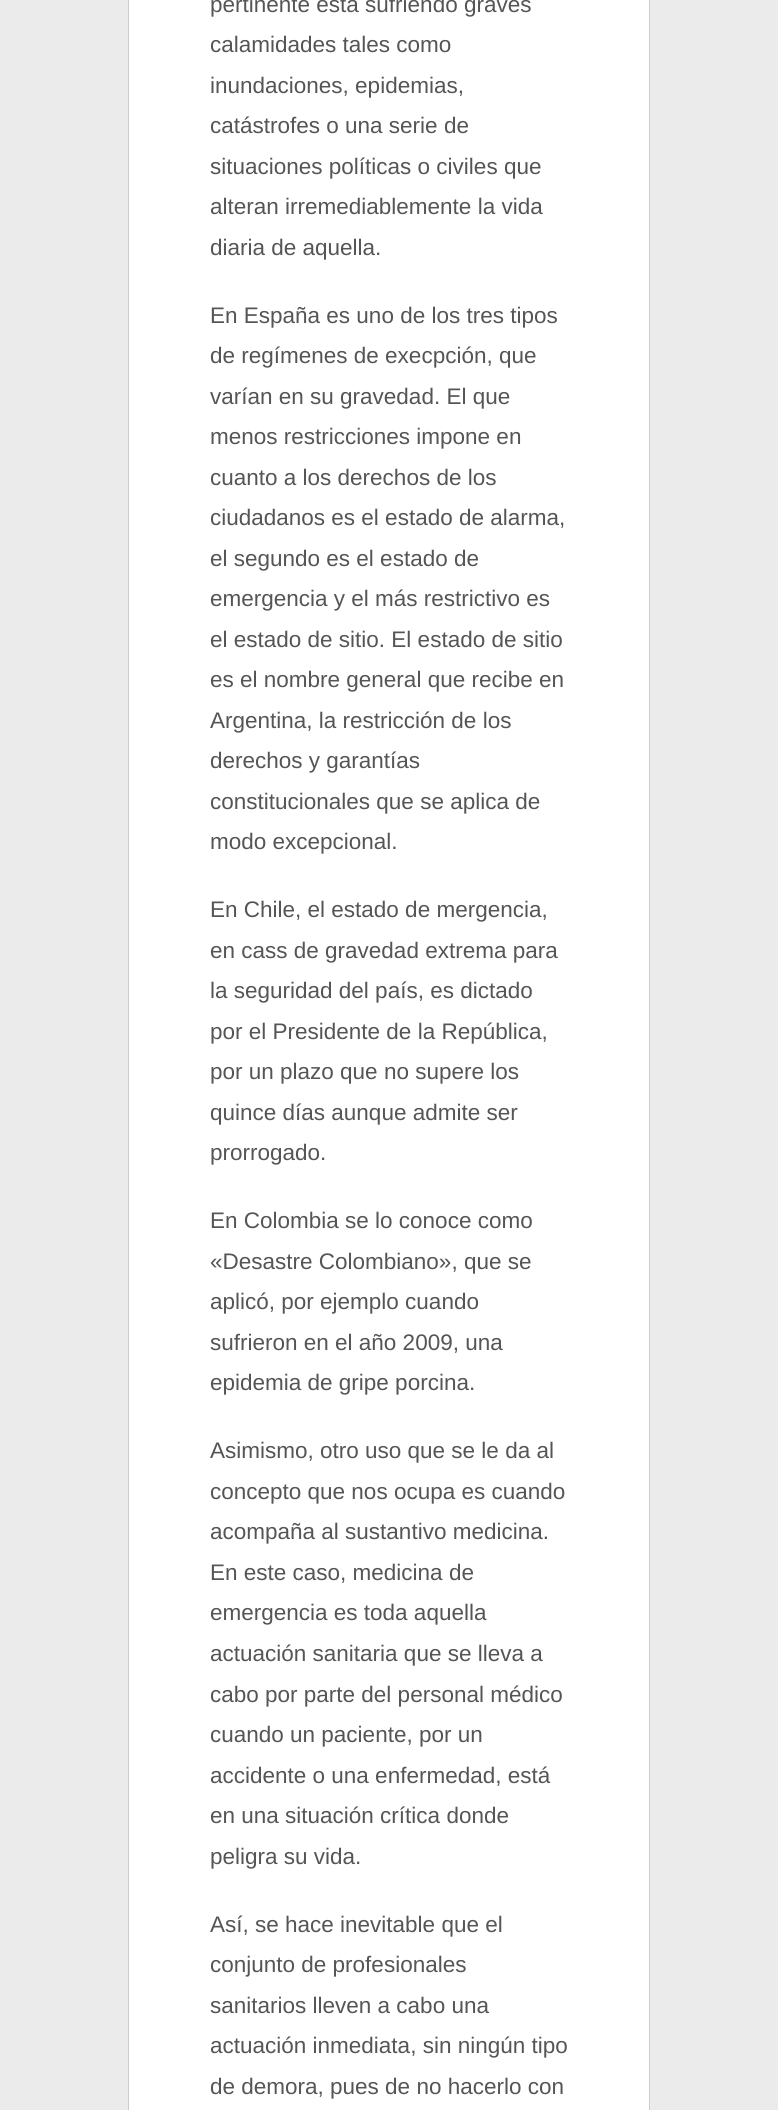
#include <cairo.h>
#include <math.h>
#include <stddef.h>

typedef struct { double x, y; const char *s; } line_t;

static void ink(cairo_t *ctx, unsigned color) {
    cairo_set_source_rgb(ctx, (color >> 16) / 255.0, (color >> 8 & 255) / 255.0, (color & 255) / 255.0);
}

int main(void) {
    cairo_surface_t *surface = cairo_image_surface_create(CAIRO_FORMAT_RGB24, 778, 2110);
    cairo_t *ctx = cairo_create(surface);
    cairo_font_options_t *options = cairo_font_options_create();
    cairo_font_options_set_hint_metrics(options, CAIRO_HINT_METRICS_OFF);
    cairo_font_options_set_hint_style(options, CAIRO_HINT_STYLE_NONE);
    cairo_set_font_options(ctx, options);
    cairo_set_miter_limit(ctx, 4);
    ink(ctx, 0xEBEBEB);
    cairo_paint(ctx);
    cairo_rectangle(ctx, 128.5, -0.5, 521, 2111);
    ink(ctx, 0xCCCCCC);
    cairo_set_line_width(ctx, 1);
    cairo_stroke(ctx);
    ink(ctx, 0xFFFFFF);
    cairo_rectangle(ctx, 129, 0, 520, 2110);
    cairo_fill(ctx);
    cairo_select_font_face(ctx, "Liberation Sans", CAIRO_FONT_SLANT_NORMAL, CAIRO_FONT_WEIGHT_NORMAL);
    cairo_set_font_size(ctx, 22.5);
    ink(ctx, 0x555555);
    {
        static const line_t items[] = {
            {210, 12, "pertinente está sufriendo graves"},
            {210, 52, "calamidades tales como"},
            {210, 93, "inundaciones, epidemias,"},
            {210, 133, "catástrofes o una serie de"},
            {210, 174, "situaciones políticas o civiles que"},
            {210, 214, "alteran irremediablemente la vida"},
            {210, 255, "diaria de aquella."},
            {210, 323, "En España es uno de los tres tipos"},
            {210, 363, "de regímenes de execpción, que"},
            {210, 404, "varían en su gravedad. El que"},
            {210, 444, "menos restricciones impone en"},
            {210, 485, "cuanto a los derechos de los"},
            {210, 525, "ciudadanos es el estado de alarma,"},
            {210, 566, "el segundo es el estado de"},
            {210, 606, "emergencia y el más restrictivo es"},
            {210, 647, "el estado de sitio. El estado de sitio"},
            {210, 687, "es el nombre general que recibe en"},
            {210, 728, "Argentina, la restricción de los"},
            {210, 768, "derechos y garantías"},
            {210, 809, "constitucionales que se aplica de"},
            {210, 849, "modo excepcional."},
            {210, 917, "En Chile, el estado de mergencia,"},
            {210, 958, "en cass de gravedad extrema para"},
            {210, 998, "la seguridad del país, es dictado"},
            {210, 1039, "por el Presidente de la República,"},
            {210, 1079, "por un plazo que no supere los"},
            {210, 1120, "quince días aunque admite ser"},
            {210, 1160, "prorrogado."},
            {210, 1228, "En Colombia se lo conoce como"},
            {210, 1269, "«Desastre Colombiano», que se"},
            {210, 1309, "aplicó, por ejemplo cuando"},
            {210, 1350, "sufrieron en el año 2009, una"},
            {210, 1390, "epidemia de gripe porcina."},
            {210, 1458, "Asimismo, otro uso que se le da al"},
            {210, 1499, "concepto que nos ocupa es cuando"},
            {210, 1539, "acompaña al sustantivo medicina."},
            {210, 1580, "En este caso, medicina de"},
            {210, 1620, "emergencia es toda aquella"},
            {210, 1661, "actuación sanitaria que se lleva a"},
            {210, 1702, "cabo por parte del personal médico"},
            {210, 1742, "cuando un paciente, por un"},
            {210, 1783, "accidente o una enfermedad, está"},
            {210, 1823, "en una situación crítica donde"},
            {210, 1864, "peligra su vida."},
            {210, 1932, "Así, se hace inevitable que el"},
            {210, 1972, "conjunto de profesionales"},
            {210, 2013, "sanitarios lleven a cabo una"},
            {210, 2053, "actuación inmediata, sin ningún tipo"},
            {210, 2094, "de demora, pues de no hacerlo con"},
        };
        for (size_t i = 0; i < sizeof items / sizeof *items; i++) {
            cairo_move_to(ctx, items[i].x, items[i].y);
            cairo_show_text(ctx, items[i].s);
        }
    }
    cairo_surface_write_to_png(surface, "image.png");
    cairo_font_options_destroy(options);
    cairo_destroy(ctx);
    cairo_surface_destroy(surface);
    return 0;
}
